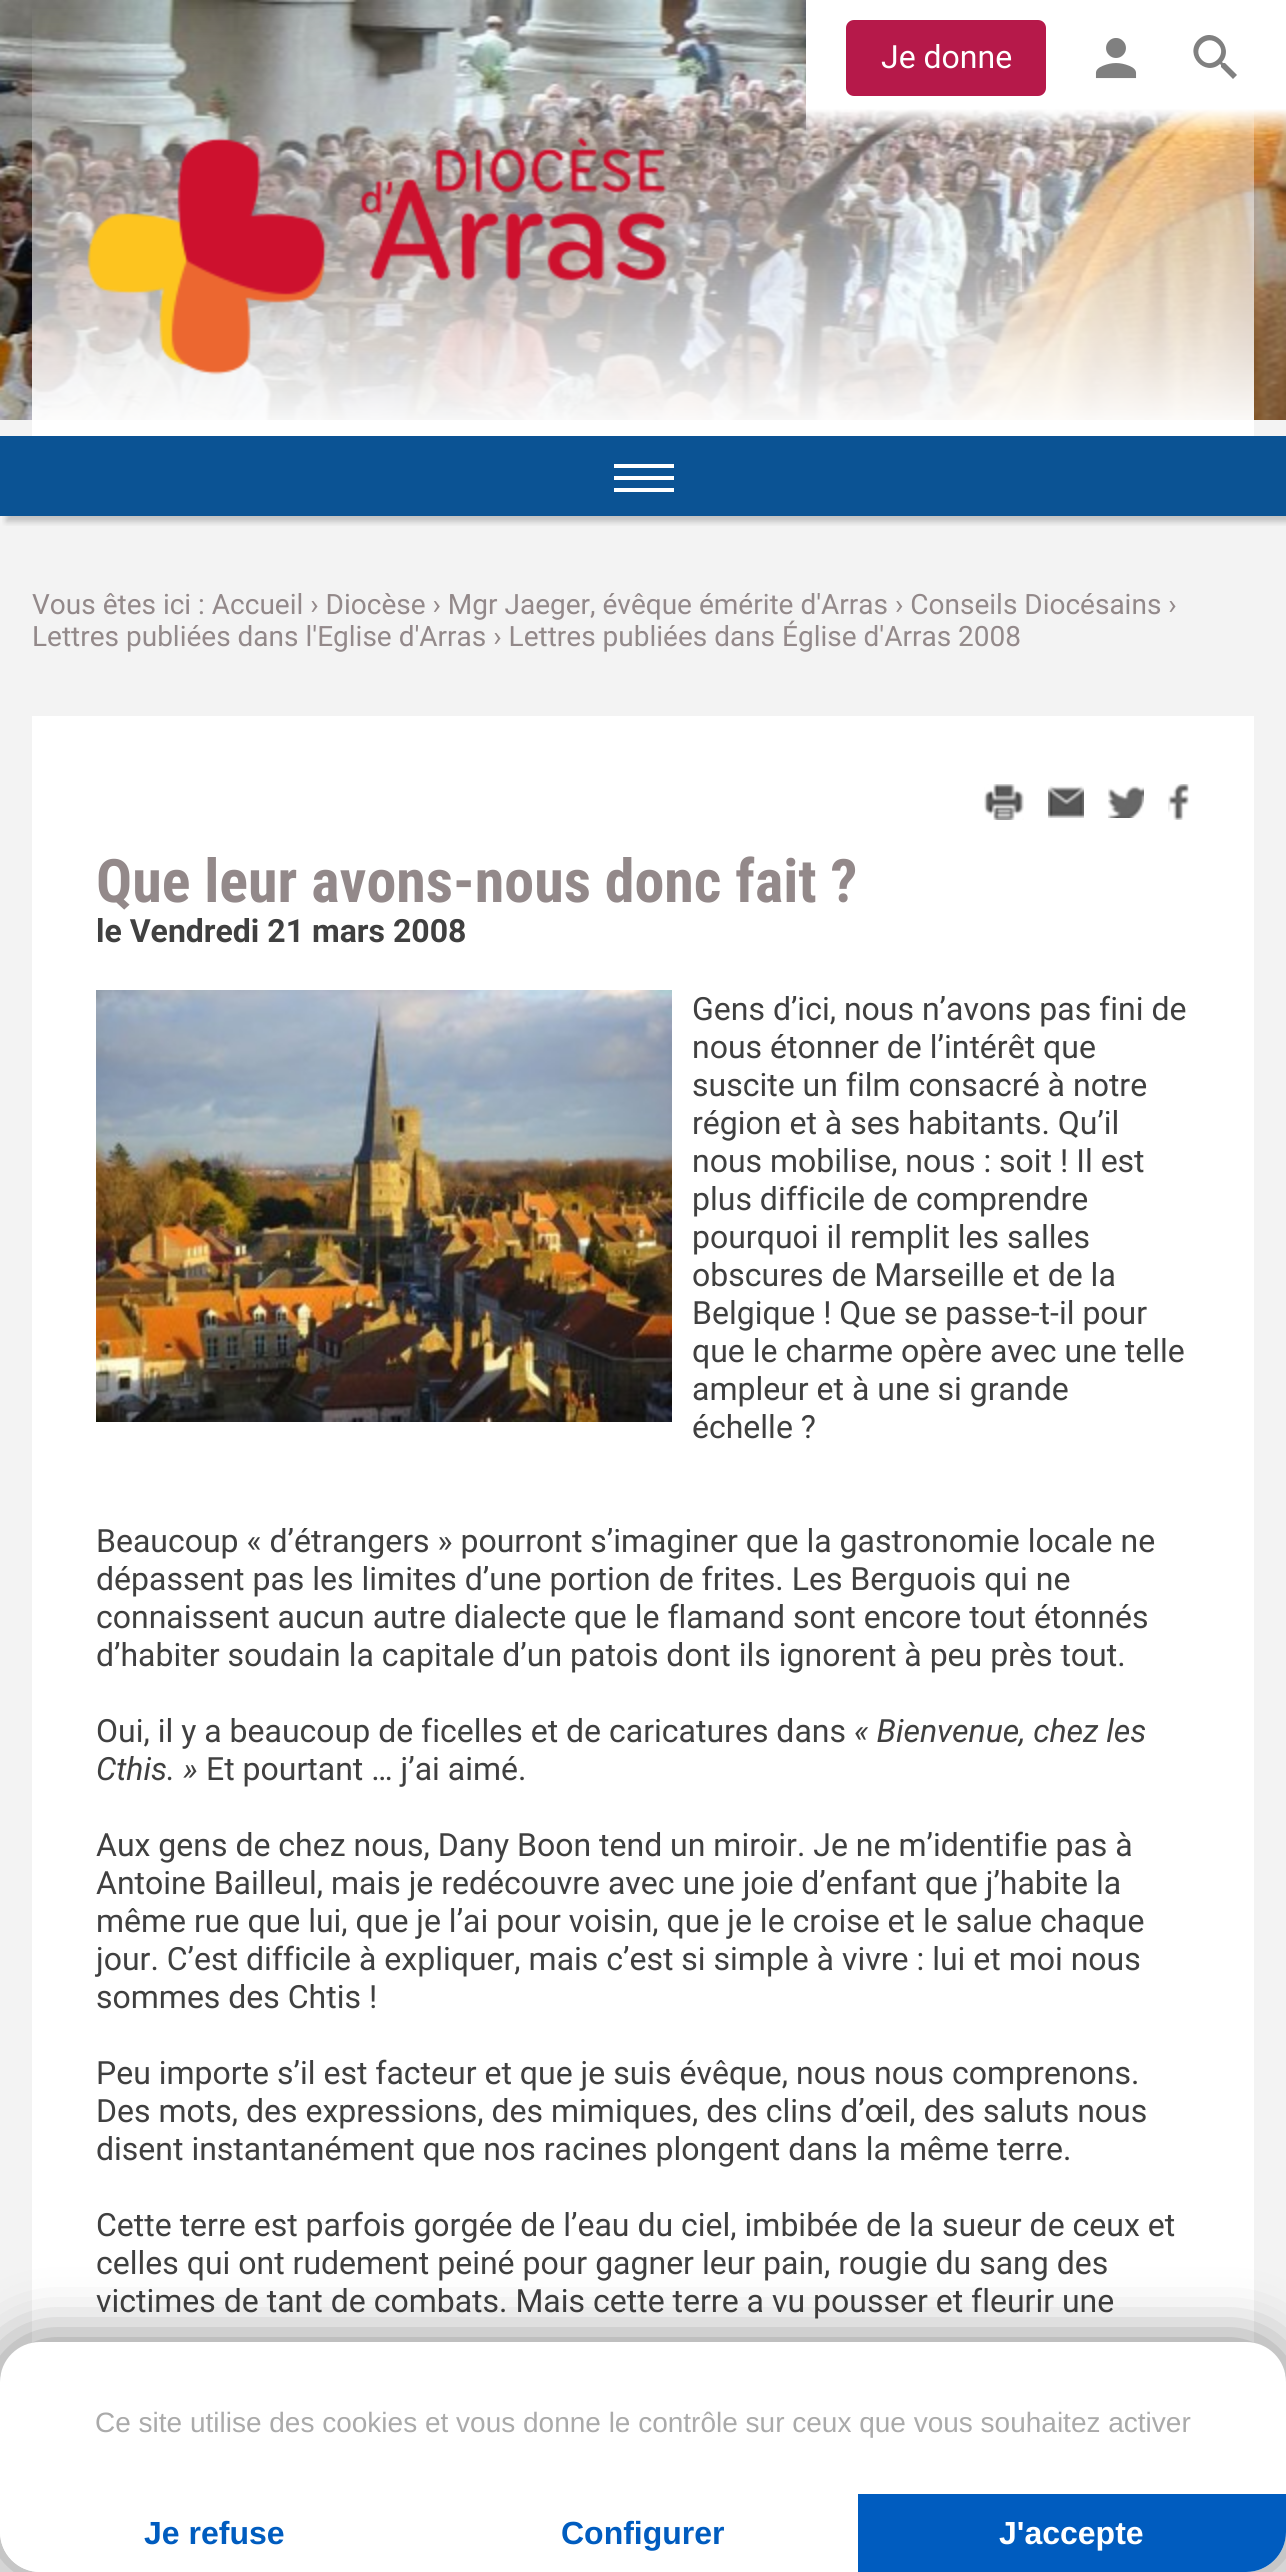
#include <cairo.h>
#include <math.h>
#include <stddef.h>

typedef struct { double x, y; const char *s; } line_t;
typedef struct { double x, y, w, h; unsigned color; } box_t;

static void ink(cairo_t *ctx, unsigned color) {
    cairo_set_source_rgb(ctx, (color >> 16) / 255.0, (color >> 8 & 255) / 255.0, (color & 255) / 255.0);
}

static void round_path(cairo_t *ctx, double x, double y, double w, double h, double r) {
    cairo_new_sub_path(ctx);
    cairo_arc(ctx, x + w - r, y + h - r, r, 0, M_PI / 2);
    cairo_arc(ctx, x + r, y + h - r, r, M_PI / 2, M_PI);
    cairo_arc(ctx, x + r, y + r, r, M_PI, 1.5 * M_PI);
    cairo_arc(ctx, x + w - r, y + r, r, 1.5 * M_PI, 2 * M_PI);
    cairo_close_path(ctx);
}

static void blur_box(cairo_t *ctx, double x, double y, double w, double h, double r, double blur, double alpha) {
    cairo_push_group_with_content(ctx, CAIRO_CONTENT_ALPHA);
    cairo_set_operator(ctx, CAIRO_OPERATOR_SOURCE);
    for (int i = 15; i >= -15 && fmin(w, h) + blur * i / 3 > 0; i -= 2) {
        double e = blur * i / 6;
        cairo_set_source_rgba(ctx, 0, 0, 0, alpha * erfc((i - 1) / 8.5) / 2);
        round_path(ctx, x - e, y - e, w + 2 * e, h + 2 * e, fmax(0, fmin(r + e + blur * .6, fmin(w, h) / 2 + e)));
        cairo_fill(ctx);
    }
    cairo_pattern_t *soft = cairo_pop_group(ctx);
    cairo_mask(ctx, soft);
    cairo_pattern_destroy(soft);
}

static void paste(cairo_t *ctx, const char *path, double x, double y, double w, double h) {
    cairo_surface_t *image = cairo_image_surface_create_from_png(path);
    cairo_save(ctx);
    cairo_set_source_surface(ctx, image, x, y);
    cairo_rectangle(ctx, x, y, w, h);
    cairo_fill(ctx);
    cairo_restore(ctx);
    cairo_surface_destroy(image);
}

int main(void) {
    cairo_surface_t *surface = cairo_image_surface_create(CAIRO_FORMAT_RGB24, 1286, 2572);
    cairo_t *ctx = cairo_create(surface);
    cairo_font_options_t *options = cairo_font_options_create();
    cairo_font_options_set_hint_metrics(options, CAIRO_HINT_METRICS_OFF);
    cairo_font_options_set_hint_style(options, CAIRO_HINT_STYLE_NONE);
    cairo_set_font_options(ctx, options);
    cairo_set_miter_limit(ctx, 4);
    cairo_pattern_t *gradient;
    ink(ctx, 0xF3F3F3);
    cairo_paint(ctx);
    paste(ctx, "media/1.png", 0, 0, 1286, 420);
    gradient = cairo_pattern_create_linear(643, 0, 643, 436);
    cairo_pattern_add_color_stop_rgba(gradient, 0, 1, 1, 1, 0);
    cairo_pattern_add_color_stop_rgba(gradient, 1, 1, 1, 1, 1);
    cairo_set_source(ctx, gradient);
    cairo_pattern_destroy(gradient);
    cairo_rectangle(ctx, 32, 9, 1222, 427);
    cairo_fill(ctx);
    paste(ctx, "media/2.png", 87, 137, 580, 238);
    gradient = cairo_pattern_create_linear(1046, 0, 1046, 136);
    cairo_pattern_add_color_stop_rgba(gradient, 0.8, 1, 1, 1, 1);
    cairo_pattern_add_color_stop_rgba(gradient, 1, 1, 1, 1, 0);
    cairo_set_source(ctx, gradient);
    cairo_pattern_destroy(gradient);
    cairo_rectangle(ctx, 806, 0, 480, 135);
    cairo_fill(ctx);
    ink(ctx, 0xB6194A);
    round_path(ctx, 846, 20, 200, 76, 8);
    cairo_fill(ctx);
    cairo_select_font_face(ctx, "Roboto", CAIRO_FONT_SLANT_NORMAL, CAIRO_FONT_WEIGHT_NORMAL);
    cairo_set_font_size(ctx, 32);
    ink(ctx, 0xFFFFFF);
    cairo_move_to(ctx, 881, 68);
    cairo_show_text(ctx, "Je donne");
    paste(ctx, "media/3.png", 1095, 38, 42, 41);
    ink(ctx, 0x808080);
    cairo_new_path(ctx);
    cairo_move_to(ctx, 1202, 60);
    cairo_curve_to(ctx, 1212, 70, 1228, 54, 1218, 44);
    cairo_curve_to(ctx, 1207, 33, 1191, 49, 1202, 60);
    cairo_close_path(ctx);
    cairo_move_to(ctx, 1225, 63);
    cairo_line_to(ctx, 1237, 75);
    cairo_line_to(ctx, 1233, 79);
    cairo_line_to(ctx, 1221, 67);
    cairo_line_to(ctx, 1221, 65);
    cairo_line_to(ctx, 1220, 64);
    cairo_curve_to(ctx, 1205, 77, 1184, 55, 1198, 40);
    cairo_curve_to(ctx, 1213, 25, 1235, 47, 1222, 62);
    cairo_line_to(ctx, 1223, 63);
    cairo_close_path(ctx);
    cairo_fill(ctx);
    ink(ctx, 0x0B5394);
    cairo_rectangle(ctx, 0, 436, 1286, 80);
    cairo_fill(ctx);
    cairo_save(ctx);
    cairo_rectangle(ctx, 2, 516, 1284, 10);
    cairo_clip(ctx);
    ink(ctx, 0x000000);
    blur_box(ctx, 6, 442, 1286, 80, 0, 3, 0.2);
    cairo_restore(ctx);
    {
        static const box_t items[] = {
            {614, 476, 60, 4, 0xFFFFFF},
            {614, 464, 60, 4, 0xFFFFFF},
            {614, 488, 60, 4, 0xFFFFFF},
        };
        for (size_t i = 0; i < sizeof items / sizeof *items; i++) {
            ink(ctx, items[i].color);
            cairo_rectangle(ctx, items[i].x, items[i].y, items[i].w, items[i].h);
            cairo_fill(ctx);
        }
    }
    cairo_set_font_size(ctx, 28);
    ink(ctx, 0x93898A);
    cairo_move_to(ctx, 32, 614);
    cairo_show_text(ctx, "Vous êtes ici : Accueil › Diocèse › Mgr Jaeger, évêque émérite d'Arras › Conseils Diocésains ›");
    cairo_move_to(ctx, 32, 646);
    cairo_show_text(ctx, "Lettres publiées dans l'Eglise d'Arras › Lettres publiées dans Église d'Arras 2008");
    ink(ctx, 0xFFFFFF);
    cairo_rectangle(ctx, 32, 716, 1222, 1856);
    cairo_fill(ctx);
    paste(ctx, "media/4.png", 984, 784, 40, 36);
    paste(ctx, "media/5.png", 1048, 786, 36, 32);
    paste(ctx, "media/6.png", 1108, 786, 36, 32);
    paste(ctx, "media/7.png", 1168, 784, 21, 36);
    cairo_select_font_face(ctx, "Roboto Condensed", CAIRO_FONT_SLANT_NORMAL, CAIRO_FONT_WEIGHT_BOLD);
    cairo_set_font_size(ctx, 60);
    ink(ctx, 0x93898A);
    cairo_move_to(ctx, 96, 902);
    cairo_show_text(ctx, "Que leur avons-nous donc fait ?");
    cairo_select_font_face(ctx, "Roboto", CAIRO_FONT_SLANT_NORMAL, CAIRO_FONT_WEIGHT_BOLD);
    cairo_set_font_size(ctx, 32);
    ink(ctx, 0x404040);
    cairo_move_to(ctx, 96, 942);
    cairo_show_text(ctx, "le Vendredi 21 mars 2008");
    paste(ctx, "media/8.png", 96, 990, 576, 432);
    cairo_select_font_face(ctx, "Roboto", CAIRO_FONT_SLANT_NORMAL, CAIRO_FONT_WEIGHT_NORMAL);
    {
        static const line_t items[] = {
            {692, 1020, "Gens d’ici, nous n’avons pas fini de"},
            {692, 1058, "nous étonner de l’intérêt que"},
            {692, 1096, "suscite un film consacré à notre"},
            {692, 1134, "région et à ses habitants. Qu’il"},
            {692, 1172, "nous mobilise, nous : soit ! Il est"},
            {692, 1210, "plus difficile de comprendre"},
            {692, 1248, "pourquoi il remplit les salles"},
            {692, 1286, "obscures de Marseille et de la"},
            {692, 1324, "Belgique ! Que se passe-t-il pour"},
            {692, 1362, "que le charme opère avec une telle"},
            {692, 1400, "ampleur et à une si grande"},
            {692, 1438, "échelle ?"},
            {96, 1552, "Beaucoup « d’étrangers » pourront s’imaginer que la gastronomie locale ne"},
            {96, 1590, "dépassent pas les limites d’une portion de frites. Les Berguois qui ne"},
            {96, 1628, "connaissent aucun autre dialecte que le flamand sont encore tout étonnés"},
            {96, 1666, "d’habiter soudain la capitale d’un patois dont ils ignorent à peu près tout."},
            {96, 1742, "Oui, il y a beaucoup de ficelles et de caricatures dans"},
        };
        for (size_t i = 0; i < sizeof items / sizeof *items; i++) {
            cairo_move_to(ctx, items[i].x, items[i].y);
            cairo_show_text(ctx, items[i].s);
        }
    }
    cairo_select_font_face(ctx, "Roboto", CAIRO_FONT_SLANT_ITALIC, CAIRO_FONT_WEIGHT_NORMAL);
    cairo_move_to(ctx, 854, 1742);
    cairo_show_text(ctx, "« Bienvenue, chez les");
    cairo_move_to(ctx, 96, 1780);
    cairo_show_text(ctx, "Cthis. »");
    cairo_select_font_face(ctx, "Roboto", CAIRO_FONT_SLANT_NORMAL, CAIRO_FONT_WEIGHT_NORMAL);
    {
        static const line_t items[] = {
            {206, 1780, "Et pourtant … j’ai aimé."},
            {96, 1856, "Aux gens de chez nous, Dany Boon tend un miroir. Je ne m’identifie pas à"},
            {96, 1894, "Antoine Bailleul, mais je redécouvre avec une joie d’enfant que j’habite la"},
            {96, 1932, "même rue que lui, que je l’ai pour voisin, que je le croise et le salue chaque"},
            {96, 1970, "jour. C’est difficile à expliquer, mais c’est si simple à vivre : lui et moi nous"},
            {96, 2008, "sommes des Chtis !"},
            {96, 2084, "Peu importe s’il est facteur et que je suis évêque, nous nous comprenons."},
            {96, 2122, "Des mots, des expressions, des mimiques, des clins d’œil, des saluts nous"},
            {96, 2160, "disent instantanément que nos racines plongent dans la même terre."},
            {96, 2236, "Cette terre est parfois gorgée de l’eau du ciel, imbibée de la sueur de ceux et"},
            {96, 2274, "celles qui ont rudement peiné pour gagner leur pain, rougie du sang des"},
            {96, 2312, "victimes de tant de combats. Mais cette terre a vu pousser et fleurir une"},
        };
        for (size_t i = 0; i < sizeof items / sizeof *items; i++) {
            cairo_move_to(ctx, items[i].x, items[i].y);
            cairo_show_text(ctx, items[i].s);
        }
    }
    ink(ctx, 0x000000);
    blur_box(ctx, 0, 2342, 1286, 230, 40, 30, 0.5);
    ink(ctx, 0xFFFFFF);
    round_path(ctx, 0, 2342, 1286, 230, 40);
    cairo_fill(ctx);
    cairo_select_font_face(ctx, "Liberation Sans", CAIRO_FONT_SLANT_NORMAL, CAIRO_FONT_WEIGHT_NORMAL);
    cairo_set_font_size(ctx, 28);
    ink(ctx, 0xAAAAAA);
    cairo_move_to(ctx, 95, 2432);
    cairo_show_text(ctx, "Ce site utilise des cookies et vous donne le contrôle sur ceux que vous souhaitez activer");
    ink(ctx, 0xFFFFFF);
    cairo_new_path(ctx);
    cairo_move_to(ctx, 0, 2494);
    cairo_line_to(ctx, 428, 2494);
    cairo_line_to(ctx, 428, 2572);
    cairo_line_to(ctx, 40, 2572);
    cairo_curve_to(ctx, 18, 2572, 0, 2554, 0, 2532);
    cairo_close_path(ctx);
    cairo_fill(ctx);
    cairo_select_font_face(ctx, "Liberation Sans", CAIRO_FONT_SLANT_NORMAL, CAIRO_FONT_WEIGHT_BOLD);
    cairo_set_font_size(ctx, 32);
    ink(ctx, 0x005CBF);
    cairo_move_to(ctx, 144, 2544);
    cairo_show_text(ctx, "Je refuse");
    cairo_move_to(ctx, 561, 2544);
    cairo_show_text(ctx, "Configurer");
    cairo_new_path(ctx);
    cairo_move_to(ctx, 858, 2494);
    cairo_line_to(ctx, 1286, 2494);
    cairo_line_to(ctx, 1286, 2532);
    cairo_curve_to(ctx, 1286, 2554, 1268, 2572, 1246, 2572);
    cairo_line_to(ctx, 858, 2572);
    cairo_close_path(ctx);
    cairo_fill(ctx);
    ink(ctx, 0xFFFFFF);
    cairo_move_to(ctx, 999, 2544);
    cairo_show_text(ctx, "J'accepte");
    cairo_surface_write_to_png(surface, "image.png");
    cairo_font_options_destroy(options);
    cairo_destroy(ctx);
    cairo_surface_destroy(surface);
    return 0;
}
